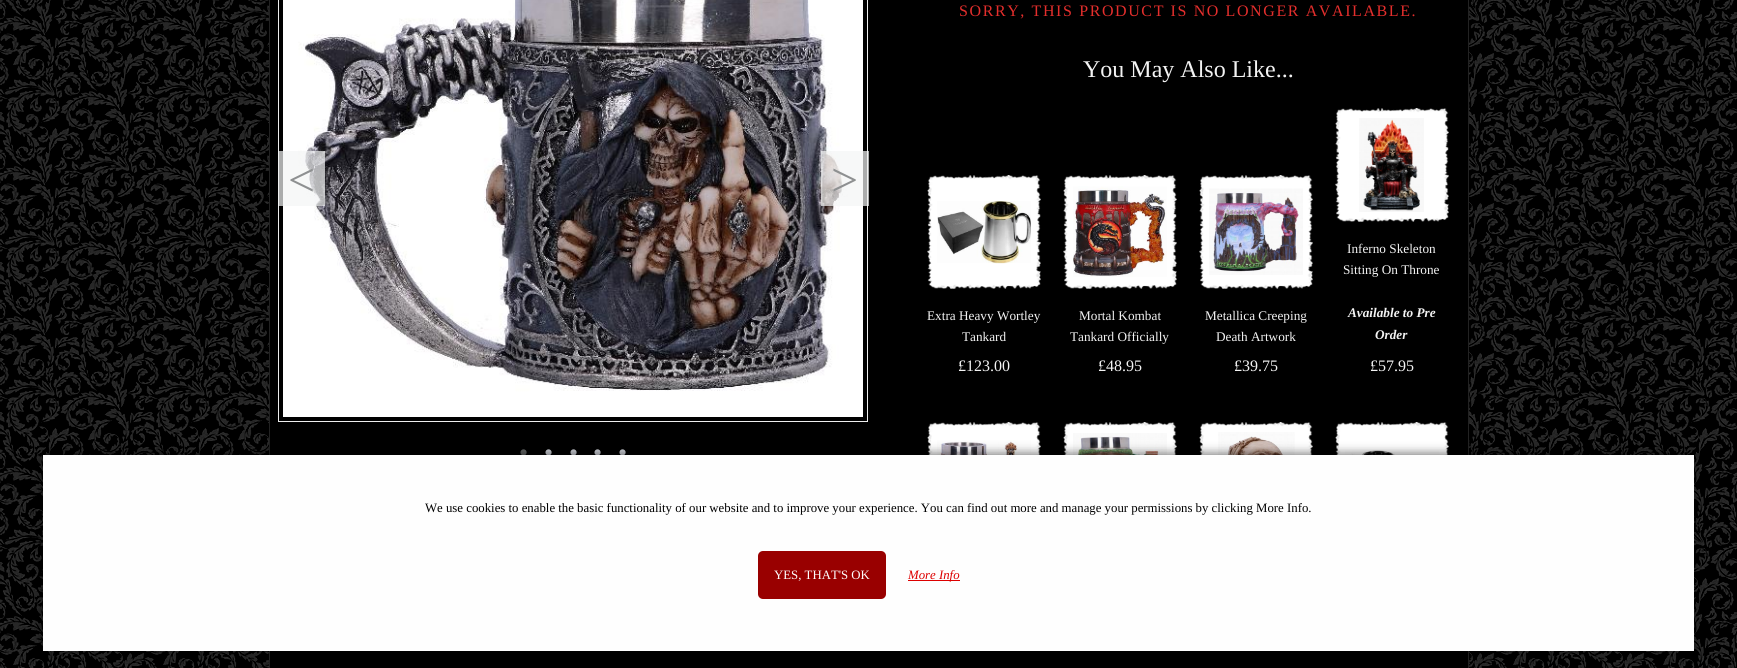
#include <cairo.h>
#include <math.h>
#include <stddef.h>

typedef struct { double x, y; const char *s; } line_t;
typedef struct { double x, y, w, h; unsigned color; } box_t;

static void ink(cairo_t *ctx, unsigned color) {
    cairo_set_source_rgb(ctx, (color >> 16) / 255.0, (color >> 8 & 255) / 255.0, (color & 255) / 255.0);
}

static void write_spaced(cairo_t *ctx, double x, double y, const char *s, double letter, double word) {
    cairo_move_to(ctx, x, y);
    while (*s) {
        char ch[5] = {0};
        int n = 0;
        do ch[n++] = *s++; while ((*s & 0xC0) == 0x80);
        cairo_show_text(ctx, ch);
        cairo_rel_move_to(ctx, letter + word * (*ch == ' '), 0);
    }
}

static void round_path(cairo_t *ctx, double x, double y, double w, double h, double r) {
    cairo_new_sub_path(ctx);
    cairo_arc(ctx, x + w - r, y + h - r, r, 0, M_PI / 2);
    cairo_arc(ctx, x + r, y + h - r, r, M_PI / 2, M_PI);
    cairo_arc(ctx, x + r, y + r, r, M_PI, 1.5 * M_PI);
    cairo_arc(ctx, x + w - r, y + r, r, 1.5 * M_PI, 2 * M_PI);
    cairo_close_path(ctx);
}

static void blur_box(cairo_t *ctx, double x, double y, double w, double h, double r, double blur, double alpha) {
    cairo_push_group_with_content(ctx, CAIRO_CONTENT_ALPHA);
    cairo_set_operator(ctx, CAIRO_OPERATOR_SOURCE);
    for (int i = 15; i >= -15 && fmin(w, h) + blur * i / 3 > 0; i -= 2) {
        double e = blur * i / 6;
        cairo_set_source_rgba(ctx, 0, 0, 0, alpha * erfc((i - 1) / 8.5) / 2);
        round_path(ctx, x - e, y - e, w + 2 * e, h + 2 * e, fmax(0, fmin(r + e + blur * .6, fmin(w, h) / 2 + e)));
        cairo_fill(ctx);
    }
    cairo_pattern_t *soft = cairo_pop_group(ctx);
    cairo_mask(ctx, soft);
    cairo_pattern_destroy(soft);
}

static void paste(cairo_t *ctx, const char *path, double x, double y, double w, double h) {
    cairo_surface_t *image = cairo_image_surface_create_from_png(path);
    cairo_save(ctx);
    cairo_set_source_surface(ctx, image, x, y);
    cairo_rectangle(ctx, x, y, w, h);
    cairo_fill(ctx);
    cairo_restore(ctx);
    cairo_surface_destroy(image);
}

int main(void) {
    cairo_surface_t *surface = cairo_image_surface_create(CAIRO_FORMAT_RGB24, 1737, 668);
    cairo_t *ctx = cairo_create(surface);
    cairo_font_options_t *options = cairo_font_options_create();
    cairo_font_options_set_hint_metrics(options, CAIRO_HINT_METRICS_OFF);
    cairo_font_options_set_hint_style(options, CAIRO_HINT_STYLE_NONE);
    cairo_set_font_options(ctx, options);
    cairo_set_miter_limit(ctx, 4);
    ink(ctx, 0xFFFFFF);
    cairo_paint(ctx);
    paste(ctx, "media/1.png", 0, 0, 1737, 668);
    {
        static const box_t items[] = {
            {270, 0, 1198, 668, 0x000000},
            {1468, 0, 1, 668, 0x222222},
            {269, 0, 1, 668, 0x222222},
        };
        for (size_t i = 0; i < sizeof items / sizeof *items; i++) {
            ink(ctx, items[i].color);
            cairo_rectangle(ctx, items[i].x, items[i].y, items[i].w, items[i].h);
            cairo_fill(ctx);
        }
    }
    paste(ctx, "media/2.png", 283, 0, 580, 417);
    cairo_rectangle(ctx, 278.5, -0.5, 589, 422);
    ink(ctx, 0xEEEEEE);
    cairo_set_line_width(ctx, 1);
    cairo_stroke(ctx);
    cairo_set_source_rgba(ctx, 0.957, 0.961, 0.965, 0.7);
    cairo_rectangle(ctx, 278, 151, 47, 55);
    cairo_fill(ctx);
    cairo_select_font_face(ctx, "Liberation Serif", CAIRO_FONT_SLANT_NORMAL, CAIRO_FONT_WEIGHT_NORMAL);
    cairo_set_font_size(ctx, 48);
    ink(ctx, 0x8E9091);
    cairo_move_to(ctx, 288, 196);
    cairo_show_text(ctx, "<");
    cairo_set_source_rgba(ctx, 0.957, 0.961, 0.965, 0.7);
    cairo_rectangle(ctx, 821, 151, 48, 55);
    cairo_fill(ctx);
    ink(ctx, 0x8E9091);
    cairo_move_to(ctx, 831, 196);
    cairo_show_text(ctx, ">");
    cairo_set_font_size(ctx, 26);
    ink(ctx, 0x636666);
    cairo_move_to(ctx, 519, 461);
    cairo_show_text(ctx, "•");
    ink(ctx, 0xCFD2D9);
    {
        static const line_t items[] = {
            {544, 461, "•"},
            {569, 461, "•"},
            {593, 461, "•"},
            {618, 461, "•"},
        };
        for (size_t i = 0; i < sizeof items / sizeof *items; i++) {
            cairo_move_to(ctx, items[i].x, items[i].y);
            cairo_show_text(ctx, items[i].s);
        }
    }
    cairo_set_font_size(ctx, 16);
    ink(ctx, 0xE42E2C);
    write_spaced(ctx, 959, 16, "SORRY, THIS PRODUCT IS NO LONGER AVAILABLE.", 1.6, 0);
    cairo_set_font_size(ctx, 24);
    ink(ctx, 0xF3F3F3);
    cairo_move_to(ctx, 1083, 77);
    cairo_show_text(ctx, "You May Also Like...");
    paste(ctx, "media/3.png", 927, 175, 114, 114);
    paste(ctx, "media/4.png", 937, 201, 94, 63);
    cairo_set_font_size(ctx, 13.25);
    cairo_move_to(ctx, 927, 320);
    cairo_show_text(ctx, "Extra Heavy Wortley");
    cairo_move_to(ctx, 962, 341);
    cairo_show_text(ctx, "Tankard");
    cairo_set_font_size(ctx, 16);
    cairo_move_to(ctx, 958, 371);
    cairo_show_text(ctx, "£123.00");
    paste(ctx, "media/5.png", 1063, 175, 114, 114);
    paste(ctx, "media/6.png", 1073, 186, 94, 91);
    cairo_set_font_size(ctx, 13.25);
    cairo_move_to(ctx, 1079, 320);
    cairo_show_text(ctx, "Mortal Kombat");
    cairo_move_to(ctx, 1070, 341);
    cairo_show_text(ctx, "Tankard Officially");
    cairo_set_font_size(ctx, 16);
    cairo_move_to(ctx, 1098, 371);
    cairo_show_text(ctx, "£48.95");
    paste(ctx, "media/7.png", 1199, 175, 114, 114);
    paste(ctx, "media/8.png", 1209, 188, 94, 87);
    cairo_set_font_size(ctx, 13.25);
    cairo_move_to(ctx, 1205, 320);
    cairo_show_text(ctx, "Metallica Creeping");
    cairo_move_to(ctx, 1216, 341);
    cairo_show_text(ctx, "Death Artwork");
    cairo_set_font_size(ctx, 16);
    cairo_move_to(ctx, 1234, 371);
    cairo_show_text(ctx, "£39.75");
    paste(ctx, "media/3.png", 1335, 108, 114, 114);
    paste(ctx, "media/9.png", 1359, 118, 65, 94);
    cairo_set_font_size(ctx, 13.25);
    cairo_move_to(ctx, 1347, 253);
    cairo_show_text(ctx, "Inferno Skeleton");
    cairo_move_to(ctx, 1343, 274);
    cairo_show_text(ctx, "Sitting On Throne");
    cairo_select_font_face(ctx, "Liberation Serif", CAIRO_FONT_SLANT_ITALIC, CAIRO_FONT_WEIGHT_BOLD);
    cairo_move_to(ctx, 1348, 317);
    cairo_show_text(ctx, "Available to Pre");
    cairo_move_to(ctx, 1375, 339);
    cairo_show_text(ctx, "Order");
    cairo_select_font_face(ctx, "Liberation Serif", CAIRO_FONT_SLANT_NORMAL, CAIRO_FONT_WEIGHT_NORMAL);
    cairo_set_font_size(ctx, 16);
    cairo_move_to(ctx, 1370, 371);
    cairo_show_text(ctx, "£57.95");
    paste(ctx, "media/10.png", 927, 422, 114, 33);
    paste(ctx, "media/11.png", 937, 440, 94, 15);
    paste(ctx, "media/12.png", 1063, 422, 114, 33);
    paste(ctx, "media/13.png", 1073, 433, 94, 22);
    paste(ctx, "media/14.png", 1199, 422, 114, 33);
    paste(ctx, "media/15.png", 1218, 432, 77, 23);
    paste(ctx, "media/10.png", 1335, 422, 114, 33);
    paste(ctx, "media/16.png", 1345, 450, 94, 5);
    ink(ctx, 0x000000);
    blur_box(ctx, 42, 453, 1651, 196, 0, 5, 0.5);
    ink(ctx, 0xFEFEFE);
    cairo_rectangle(ctx, 43, 455, 1651, 196);
    cairo_fill(ctx);
    cairo_set_font_size(ctx, 12.8);
    ink(ctx, 0x000000);
    cairo_move_to(ctx, 425, 512);
    cairo_show_text(ctx, "We use cookies to enable the basic functionality of our website and to improve your experience. You can find out more and manage your permissions by clicking More Info.");
    ink(ctx, 0x990000);
    round_path(ctx, 758, 551, 128, 48, 5);
    cairo_fill(ctx);
    ink(ctx, 0xFEFEFE);
    cairo_move_to(ctx, 774, 579);
    cairo_show_text(ctx, "YES, THAT'S OK");
    ink(ctx, 0xDD0000);
    cairo_rectangle(ctx, 908, 580, 52, 1);
    cairo_fill(ctx);
    cairo_select_font_face(ctx, "Liberation Serif", CAIRO_FONT_SLANT_ITALIC, CAIRO_FONT_WEIGHT_NORMAL);
    cairo_move_to(ctx, 908, 579);
    cairo_show_text(ctx, "More Info");
    cairo_surface_write_to_png(surface, "image.png");
    cairo_font_options_destroy(options);
    cairo_destroy(ctx);
    cairo_surface_destroy(surface);
    return 0;
}
